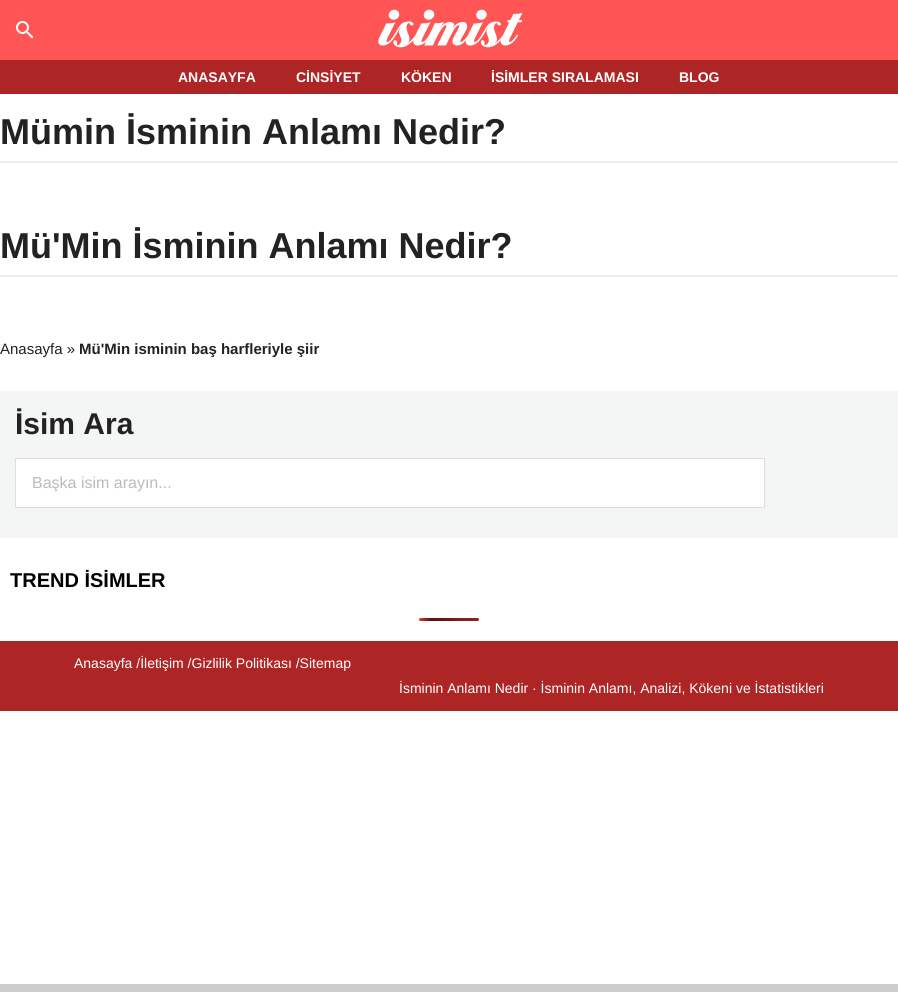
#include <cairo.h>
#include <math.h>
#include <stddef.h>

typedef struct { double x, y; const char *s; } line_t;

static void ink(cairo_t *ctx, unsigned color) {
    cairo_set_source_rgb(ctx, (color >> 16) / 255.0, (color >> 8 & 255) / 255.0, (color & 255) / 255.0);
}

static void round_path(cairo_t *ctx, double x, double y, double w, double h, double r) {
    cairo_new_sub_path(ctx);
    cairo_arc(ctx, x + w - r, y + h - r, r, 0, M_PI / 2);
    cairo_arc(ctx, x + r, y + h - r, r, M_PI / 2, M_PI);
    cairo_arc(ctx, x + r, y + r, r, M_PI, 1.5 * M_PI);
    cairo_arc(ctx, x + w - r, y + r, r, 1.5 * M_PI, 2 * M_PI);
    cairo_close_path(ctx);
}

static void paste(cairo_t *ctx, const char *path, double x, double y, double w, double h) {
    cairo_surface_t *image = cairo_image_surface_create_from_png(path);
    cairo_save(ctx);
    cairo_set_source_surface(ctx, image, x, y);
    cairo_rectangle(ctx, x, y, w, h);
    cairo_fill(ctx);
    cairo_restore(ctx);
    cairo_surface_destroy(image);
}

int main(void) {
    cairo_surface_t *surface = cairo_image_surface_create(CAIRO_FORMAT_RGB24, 898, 992);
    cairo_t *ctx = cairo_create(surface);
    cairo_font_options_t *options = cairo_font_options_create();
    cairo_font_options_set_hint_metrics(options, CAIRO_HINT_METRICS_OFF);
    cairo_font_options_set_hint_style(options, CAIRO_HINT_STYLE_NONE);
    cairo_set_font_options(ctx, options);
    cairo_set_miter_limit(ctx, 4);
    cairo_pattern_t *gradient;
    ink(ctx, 0xFFFFFF);
    cairo_paint(ctx);
    ink(ctx, 0xFF5555);
    cairo_rectangle(ctx, 0, 0, 898, 60);
    cairo_fill(ctx);
    paste(ctx, "media/1.png", 16, 21, 18, 18);
    paste(ctx, "media/2.png", 378, 9, 144, 39);
    ink(ctx, 0xAD2525);
    cairo_rectangle(ctx, 0, 60, 898, 34);
    cairo_fill(ctx);
    cairo_select_font_face(ctx, "Liberation Sans", CAIRO_FONT_SLANT_NORMAL, CAIRO_FONT_WEIGHT_BOLD);
    cairo_set_font_size(ctx, 14);
    ink(ctx, 0xFFFFFF);
    {
        static const line_t items[] = {
            {178, 82, "ANASAYFA"},
            {296, 82, "CİNSİYET"},
            {401, 82, "KÖKEN"},
            {491, 82, "İSİMLER SIRALAMASI"},
            {679, 82, "BLOG"},
        };
        for (size_t i = 0; i < sizeof items / sizeof *items; i++) {
            cairo_move_to(ctx, items[i].x, items[i].y);
            cairo_show_text(ctx, items[i].s);
        }
    }
    ink(ctx, 0xEEEEEE);
    cairo_rectangle(ctx, 0, 161, 898, 2);
    cairo_fill(ctx);
    cairo_set_font_size(ctx, 36);
    ink(ctx, 0x222222);
    cairo_move_to(ctx, 0, 144);
    cairo_show_text(ctx, "Mümin İsminin Anlamı Nedir?");
    ink(ctx, 0xEEEEEE);
    cairo_rectangle(ctx, 0, 275, 898, 2);
    cairo_fill(ctx);
    ink(ctx, 0x222222);
    cairo_move_to(ctx, 0, 258);
    cairo_show_text(ctx, "Mü'Min İsminin Anlamı Nedir?");
    cairo_select_font_face(ctx, "Liberation Sans", CAIRO_FONT_SLANT_NORMAL, CAIRO_FONT_WEIGHT_NORMAL);
    cairo_set_font_size(ctx, 15);
    cairo_move_to(ctx, 0, 354);
    cairo_show_text(ctx, "Anasayfa »");
    cairo_select_font_face(ctx, "Liberation Sans", CAIRO_FONT_SLANT_NORMAL, CAIRO_FONT_WEIGHT_BOLD);
    cairo_move_to(ctx, 79, 354);
    cairo_show_text(ctx, "Mü'Min isminin baş harfleriyle şiir");
    ink(ctx, 0xF4F5F5);
    cairo_rectangle(ctx, 0, 391, 898, 147);
    cairo_fill(ctx);
    cairo_set_font_size(ctx, 30);
    ink(ctx, 0x222222);
    cairo_move_to(ctx, 15, 434);
    cairo_show_text(ctx, "İsim Ara");
    ink(ctx, 0xFFFFFF);
    cairo_rectangle(ctx, 15.5, 458.5, 749, 49);
    cairo_fill_preserve(ctx);
    ink(ctx, 0xDDDDDD);
    cairo_set_line_width(ctx, 1);
    cairo_stroke(ctx);
    cairo_select_font_face(ctx, "Liberation Sans", CAIRO_FONT_SLANT_NORMAL, CAIRO_FONT_WEIGHT_NORMAL);
    cairo_set_font_size(ctx, 16);
    ink(ctx, 0xBBBBBB);
    cairo_move_to(ctx, 32, 488);
    cairo_show_text(ctx, "Başka isim arayın...");
    cairo_select_font_face(ctx, "Liberation Sans", CAIRO_FONT_SLANT_NORMAL, CAIRO_FONT_WEIGHT_BOLD);
    cairo_set_font_size(ctx, 20);
    ink(ctx, 0x000000);
    cairo_move_to(ctx, 10, 587);
    cairo_show_text(ctx, "TREND İSİMLER");
    gradient = cairo_pattern_create_linear(419, 620, 539, 620);
    cairo_pattern_add_color_stop_rgba(gradient, 0, 0.867, 0.216, 0.216, 1);
    cairo_pattern_add_color_stop_rgba(gradient, 0.1, 0.341, 0.075, 0.075, 1);
    cairo_pattern_add_color_stop_rgba(gradient, 1, 0.867, 0.216, 0.216, 1);
    cairo_set_source(ctx, gradient);
    cairo_pattern_destroy(gradient);
    round_path(ctx, 419, 618, 60, 3, 1.5);
    cairo_fill(ctx);
    ink(ctx, 0xAD2525);
    cairo_rectangle(ctx, 0, 641, 898, 70);
    cairo_fill(ctx);
    cairo_select_font_face(ctx, "Liberation Sans", CAIRO_FONT_SLANT_NORMAL, CAIRO_FONT_WEIGHT_NORMAL);
    cairo_set_font_size(ctx, 14);
    ink(ctx, 0xFFFFFF);
    cairo_move_to(ctx, 74, 668);
    cairo_show_text(ctx, "Anasayfa /İletişim /Gizlilik Politikası /Sitemap");
    cairo_move_to(ctx, 399, 693);
    cairo_show_text(ctx, "İsminin Anlamı Nedir · İsminin Anlamı, Analizi, Kökeni ve İstatistikleri");
    ink(ctx, 0xCCCCCC);
    cairo_rectangle(ctx, 0, 984, 898, 8);
    cairo_fill(ctx);
    cairo_surface_write_to_png(surface, "image.png");
    cairo_font_options_destroy(options);
    cairo_destroy(ctx);
    cairo_surface_destroy(surface);
    return 0;
}
